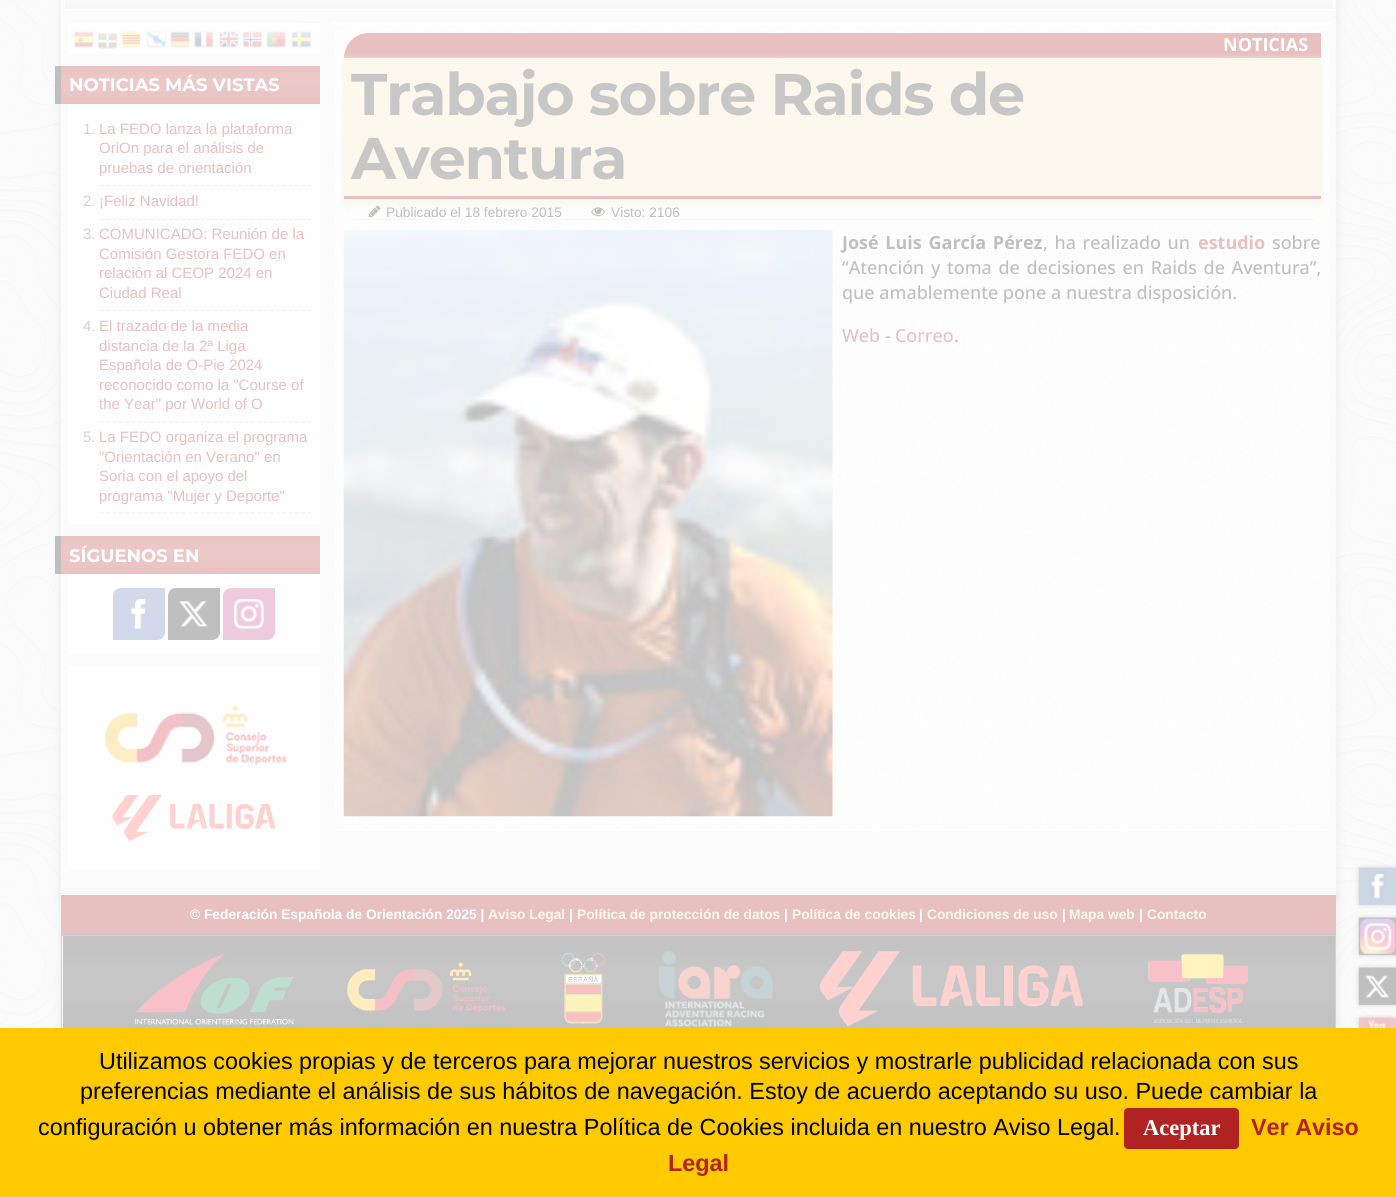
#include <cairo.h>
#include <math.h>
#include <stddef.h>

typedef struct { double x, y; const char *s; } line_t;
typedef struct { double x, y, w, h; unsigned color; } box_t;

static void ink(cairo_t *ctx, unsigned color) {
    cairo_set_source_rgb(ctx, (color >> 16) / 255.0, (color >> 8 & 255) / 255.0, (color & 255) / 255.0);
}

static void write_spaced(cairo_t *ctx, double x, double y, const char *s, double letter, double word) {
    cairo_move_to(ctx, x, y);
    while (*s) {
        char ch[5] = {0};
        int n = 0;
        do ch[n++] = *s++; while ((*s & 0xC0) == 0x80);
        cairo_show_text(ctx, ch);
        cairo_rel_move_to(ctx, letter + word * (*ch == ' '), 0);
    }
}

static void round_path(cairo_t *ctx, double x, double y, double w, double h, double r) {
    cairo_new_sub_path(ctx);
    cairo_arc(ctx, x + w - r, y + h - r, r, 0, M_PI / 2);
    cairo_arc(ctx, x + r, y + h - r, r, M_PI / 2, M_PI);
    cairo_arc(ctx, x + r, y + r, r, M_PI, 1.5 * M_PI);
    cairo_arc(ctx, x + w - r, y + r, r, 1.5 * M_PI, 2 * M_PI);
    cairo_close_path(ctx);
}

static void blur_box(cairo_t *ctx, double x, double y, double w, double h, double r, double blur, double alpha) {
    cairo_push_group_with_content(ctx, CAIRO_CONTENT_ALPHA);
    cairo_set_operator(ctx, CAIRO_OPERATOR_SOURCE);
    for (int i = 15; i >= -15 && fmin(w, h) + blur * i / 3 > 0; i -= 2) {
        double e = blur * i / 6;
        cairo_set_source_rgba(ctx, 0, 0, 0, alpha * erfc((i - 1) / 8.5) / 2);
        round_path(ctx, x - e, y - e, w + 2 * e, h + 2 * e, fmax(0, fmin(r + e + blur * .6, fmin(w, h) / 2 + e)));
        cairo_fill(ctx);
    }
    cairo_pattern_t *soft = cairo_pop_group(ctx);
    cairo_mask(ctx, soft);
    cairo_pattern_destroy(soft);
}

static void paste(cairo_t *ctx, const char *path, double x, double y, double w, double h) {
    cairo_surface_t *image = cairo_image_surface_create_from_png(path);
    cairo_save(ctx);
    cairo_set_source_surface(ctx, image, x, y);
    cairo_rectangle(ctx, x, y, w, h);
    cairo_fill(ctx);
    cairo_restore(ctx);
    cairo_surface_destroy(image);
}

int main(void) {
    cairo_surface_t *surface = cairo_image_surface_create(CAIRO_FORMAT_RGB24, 1396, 1197);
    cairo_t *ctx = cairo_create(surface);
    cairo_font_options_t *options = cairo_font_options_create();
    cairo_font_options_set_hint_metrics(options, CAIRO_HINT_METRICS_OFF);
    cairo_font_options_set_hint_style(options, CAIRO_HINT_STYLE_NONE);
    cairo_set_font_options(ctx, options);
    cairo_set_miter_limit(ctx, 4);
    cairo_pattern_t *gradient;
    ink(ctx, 0xFFFFFF);
    cairo_paint(ctx);
    paste(ctx, "media/1.png", 0, 0, 1396, 1028);
    ink(ctx, 0xBFBFBF);
    blur_box(ctx, 60, -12, 1278, 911, 0, 4, 0.2);
    ink(ctx, 0xFBFBFB);
    cairo_rectangle(ctx, 61, 0, 1275, 894);
    cairo_fill(ctx);
    ink(ctx, 0xFEFEFE);
    cairo_rectangle(ctx, 65, 0, 1268, 9);
    cairo_fill(ctx);
    paste(ctx, "media/2.png", 63, 0, 1270, 10);
    cairo_rectangle(ctx, 64.5, -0.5, 1269, 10);
    ink(ctx, 0xFFFFFF);
    cairo_set_line_width(ctx, 1);
    cairo_stroke(ctx);
    paste(ctx, "media/3.png", 297, 22, 23, 1);
    ink(ctx, 0xFEFEFE);
    cairo_rectangle(ctx, 68, 23, 252, 31);
    cairo_fill(ctx);
    paste(ctx, "media/4.png", 73, 31, 21, 18);
    paste(ctx, "media/5.png", 97, 32, 21, 18);
    paste(ctx, "media/6.png", 122, 31, 19, 18);
    paste(ctx, "media/7.png", 146, 31, 21, 18);
    paste(ctx, "media/8.png", 170, 31, 20, 18);
    paste(ctx, "media/9.png", 193, 31, 21, 18);
    paste(ctx, "media/10.png", 218, 31, 21, 18);
    paste(ctx, "media/11.png", 242, 31, 21, 18);
    paste(ctx, "media/12.png", 266, 31, 21, 18);
    paste(ctx, "media/13.png", 291, 31, 21, 18);
    ink(ctx, 0xE9C0C0);
    cairo_rectangle(ctx, 61, 66, 259, 38);
    cairo_fill(ctx);
    paste(ctx, "media/14.png", 61, 66, 259, 38);
    ink(ctx, 0xBFBFBF);
    cairo_rectangle(ctx, 55, 66, 6, 38);
    cairo_fill(ctx);
    cairo_select_font_face(ctx, "Montserrat", CAIRO_FONT_SLANT_NORMAL, CAIRO_FONT_WEIGHT_BOLD);
    cairo_set_font_size(ctx, 18);
    ink(ctx, 0xFFFFFF);
    cairo_move_to(ctx, 69, 91);
    cairo_show_text(ctx, "NOTICIAS MÁS VISTAS");
    ink(ctx, 0xFEFEFE);
    cairo_rectangle(ctx, 68, 104, 252, 420);
    cairo_fill(ctx);
    cairo_new_path(ctx);
    cairo_move_to(ctx, 100, 185.5);
    cairo_line_to(ctx, 311, 185.5);
    ink(ctx, 0xF2F2F2);
    cairo_set_line_width(ctx, 1.2);
    cairo_set_dash(ctx, (double[]){3.75, 2.54}, 2, 0);
    cairo_stroke(ctx);
    cairo_select_font_face(ctx, "Liberation Sans", CAIRO_FONT_SLANT_NORMAL, CAIRO_FONT_WEIGHT_NORMAL);
    cairo_set_font_size(ctx, 15);
    ink(ctx, 0xD3D3D3);
    cairo_move_to(ctx, 83, 134);
    cairo_show_text(ctx, "1.");
    ink(ctx, 0xE9C0C0);
    {
        static const line_t items[] = {
            {99, 134, "La FEDO lanza la plataforma"},
            {99, 153, "OriOn para el análisis de"},
            {99, 173, "pruebas de orientación"},
        };
        for (size_t i = 0; i < sizeof items / sizeof *items; i++) {
            cairo_move_to(ctx, items[i].x, items[i].y);
            cairo_show_text(ctx, items[i].s);
        }
    }
    cairo_new_path(ctx);
    cairo_move_to(ctx, 100, 219.5);
    cairo_line_to(ctx, 311, 219.5);
    ink(ctx, 0xF2F2F2);
    cairo_stroke(ctx);
    ink(ctx, 0xD3D3D3);
    cairo_move_to(ctx, 83, 206);
    cairo_show_text(ctx, "2.");
    ink(ctx, 0xE9C0C0);
    cairo_move_to(ctx, 99, 206);
    cairo_show_text(ctx, "¡Feliz Navidad!");
    cairo_new_path(ctx);
    cairo_move_to(ctx, 100, 310.5);
    cairo_line_to(ctx, 311, 310.5);
    ink(ctx, 0xF2F2F2);
    cairo_stroke(ctx);
    ink(ctx, 0xD3D3D3);
    cairo_move_to(ctx, 83, 239);
    cairo_show_text(ctx, "3.");
    ink(ctx, 0xE9C0C0);
    {
        static const line_t items[] = {
            {99, 239, "COMUNICADO: Reunión de la"},
            {99, 259, "Comisión Gestora FEDO en"},
            {99, 278, "relación al CEOP 2024 en"},
            {99, 298, "Ciudad Real"},
        };
        for (size_t i = 0; i < sizeof items / sizeof *items; i++) {
            cairo_move_to(ctx, items[i].x, items[i].y);
            cairo_show_text(ctx, items[i].s);
        }
    }
    cairo_new_path(ctx);
    cairo_move_to(ctx, 100, 422);
    cairo_line_to(ctx, 311, 422);
    ink(ctx, 0xF2F2F2);
    cairo_stroke(ctx);
    ink(ctx, 0xD3D3D3);
    cairo_move_to(ctx, 83, 331);
    cairo_show_text(ctx, "4.");
    ink(ctx, 0xE9C0C0);
    {
        static const line_t items[] = {
            {99, 331, "El trazado de la media"},
            {99, 351, "distancia de la 2ª Liga"},
            {99, 370, "Española de O-Pie 2024"},
            {99, 390, "reconocido como la \"Course of"},
            {99, 409, "the Year\" por World of O"},
        };
        for (size_t i = 0; i < sizeof items / sizeof *items; i++) {
            cairo_move_to(ctx, items[i].x, items[i].y);
            cairo_show_text(ctx, items[i].s);
        }
    }
    cairo_new_path(ctx);
    cairo_move_to(ctx, 100, 513);
    cairo_line_to(ctx, 311, 513);
    ink(ctx, 0xF2F2F2);
    cairo_stroke(ctx);
    ink(ctx, 0xD3D3D3);
    cairo_move_to(ctx, 83, 442);
    cairo_show_text(ctx, "5.");
    ink(ctx, 0xE9C0C0);
    {
        static const line_t items[] = {
            {99, 442, "La FEDO organiza el programa"},
            {99, 462, "\"Orientación en Verano\" en"},
            {99, 481, "Soria con el apoyo del"},
            {99, 501, "programa \"Mujer y Deporte\""},
        };
        for (size_t i = 0; i < sizeof items / sizeof *items; i++) {
            cairo_move_to(ctx, items[i].x, items[i].y);
            cairo_show_text(ctx, items[i].s);
        }
    }
    cairo_rectangle(ctx, 61, 536, 259, 38);
    cairo_fill(ctx);
    paste(ctx, "media/14.png", 61, 536, 259, 38);
    ink(ctx, 0xBFBFBF);
    cairo_rectangle(ctx, 55, 536, 6, 38);
    cairo_fill(ctx);
    cairo_select_font_face(ctx, "Montserrat", CAIRO_FONT_SLANT_NORMAL, CAIRO_FONT_WEIGHT_BOLD);
    cairo_set_font_size(ctx, 18);
    ink(ctx, 0xFFFFFF);
    cairo_move_to(ctx, 69, 562);
    cairo_show_text(ctx, "SÍGUENOS EN");
    ink(ctx, 0xFEFEFE);
    cairo_rectangle(ctx, 68, 574, 252, 80);
    cairo_fill(ctx);
    ink(ctx, 0xD2D9EA);
    cairo_new_path(ctx);
    cairo_move_to(ctx, 121, 588);
    cairo_line_to(ctx, 165, 588);
    cairo_line_to(ctx, 165, 632);
    cairo_curve_to(ctx, 165, 636.5, 161.5, 640, 157, 640);
    cairo_line_to(ctx, 113, 640);
    cairo_line_to(ctx, 113, 596);
    cairo_curve_to(ctx, 113, 591.5, 116.5, 588, 121, 588);
    cairo_close_path(ctx);
    cairo_fill(ctx);
    ink(ctx, 0xBFBFBF);
    cairo_new_path(ctx);
    cairo_move_to(ctx, 176, 588);
    cairo_line_to(ctx, 220, 588);
    cairo_line_to(ctx, 220, 632);
    cairo_curve_to(ctx, 220, 636.5, 216.5, 640, 212, 640);
    cairo_line_to(ctx, 168, 640);
    cairo_line_to(ctx, 168, 596);
    cairo_curve_to(ctx, 168, 591.5, 171.5, 588, 176, 588);
    cairo_close_path(ctx);
    cairo_fill(ctx);
    ink(ctx, 0xEECBDC);
    cairo_new_path(ctx);
    cairo_move_to(ctx, 231, 588);
    cairo_line_to(ctx, 275, 588);
    cairo_line_to(ctx, 275, 632);
    cairo_curve_to(ctx, 275, 636.5, 271.5, 640, 267, 640);
    cairo_line_to(ctx, 223, 640);
    cairo_line_to(ctx, 223, 596);
    cairo_curve_to(ctx, 223, 591.5, 226.5, 588, 231, 588);
    cairo_close_path(ctx);
    cairo_fill(ctx);
    paste(ctx, "media/15.png", 131, 598, 16, 31);
    paste(ctx, "media/16.png", 179, 601, 29, 26);
    paste(ctx, "media/17.png", 233, 598, 31, 31);
    ink(ctx, 0xFEFEFE);
    cairo_rectangle(ctx, 68, 666, 252, 203);
    cairo_fill(ctx);
    paste(ctx, "media/18.png", 104, 704, 183, 62);
    paste(ctx, "media/19.png", 112, 795, 163, 47);
    cairo_rectangle(ctx, 334, 25, 996, 804);
    cairo_fill(ctx);
    paste(ctx, "media/20.png", 332, 22, 999, 809);
    ink(ctx, 0xFFFFFF);
    cairo_new_path(ctx);
    cairo_move_to(ctx, 332, 22);
    cairo_line_to(ctx, 1331, 22);
    cairo_line_to(ctx, 1330, 25);
    cairo_line_to(ctx, 334, 25);
    cairo_close_path(ctx);
    cairo_fill(ctx);
    cairo_new_path(ctx);
    cairo_move_to(ctx, 1331, 831);
    cairo_line_to(ctx, 332, 831);
    cairo_line_to(ctx, 334, 829);
    cairo_line_to(ctx, 1330, 829);
    cairo_close_path(ctx);
    cairo_fill(ctx);
    ink(ctx, 0xE9C0C0);
    cairo_new_path(ctx);
    cairo_move_to(ctx, 369, 33);
    cairo_line_to(ctx, 1321, 33);
    cairo_line_to(ctx, 1321, 58);
    cairo_line_to(ctx, 344, 58);
    cairo_curve_to(ctx, 344, 44, 355, 33, 369, 33);
    cairo_close_path(ctx);
    cairo_fill(ctx);
    ink(ctx, 0xF2F2F2);
    blur_box(ctx, 344, 59, 977, 141, 0, 2.5, 1);
    cairo_select_font_face(ctx, "Open Sans", CAIRO_FONT_SLANT_NORMAL, CAIRO_FONT_WEIGHT_BOLD);
    ink(ctx, 0xFFFFFF);
    cairo_move_to(ctx, 1223, 51);
    cairo_show_text(ctx, "NOTICIAS");
    ink(ctx, 0xFDF8ED);
    cairo_rectangle(ctx, 344, 58, 977, 138);
    cairo_fill(ctx);
    ink(ctx, 0xE9C0C0);
    cairo_rectangle(ctx, 344, 196, 977, 3);
    cairo_fill(ctx);
    cairo_select_font_face(ctx, "Montserrat", CAIRO_FONT_SLANT_NORMAL, CAIRO_FONT_WEIGHT_BOLD);
    cairo_set_font_size(ctx, 58.75);
    ink(ctx, 0xC8C7C7);
    write_spaced(ctx, 351, 115, "Trabajo sobre Raids de", -1.25, 0);
    write_spaced(ctx, 351, 179, "Aventura", -1.25, 0);
    cairo_save(ctx);
    cairo_new_path(ctx);
    cairo_move_to(ctx, 344, 201);
    cairo_line_to(ctx, 1321, 201);
    cairo_curve_to(ctx, 1321, 211.5, 1312.5, 220, 1302, 220);
    cairo_line_to(ctx, 363, 220);
    cairo_curve_to(ctx, 352.5, 220, 344, 211.5, 344, 201);
    cairo_close_path(ctx);
    cairo_clip(ctx);
    gradient = cairo_pattern_create_linear(833, 201, 833, 219);
    cairo_pattern_add_color_stop_rgba(gradient, 0, 0.976, 0.976, 0.945, 1);
    cairo_pattern_add_color_stop_rgba(gradient, 1, 1, 1, 1, 1);
    cairo_set_source(ctx, gradient);
    cairo_pattern_destroy(gradient);
    cairo_rectangle(ctx, 344, 201, 977, 18);
    cairo_fill(ctx);
    cairo_restore(ctx);
    ink(ctx, 0xF5F5F5);
    cairo_rectangle(ctx, 354, 219, 959, 1);
    cairo_fill(ctx);
    paste(ctx, "media/21.png", 368, 205, 13, 13);
    cairo_select_font_face(ctx, "Liberation Sans", CAIRO_FONT_SLANT_NORMAL, CAIRO_FONT_WEIGHT_NORMAL);
    cairo_set_font_size(ctx, 13.75);
    ink(ctx, 0xBFBFBF);
    cairo_move_to(ctx, 386, 217);
    cairo_show_text(ctx, "Publicado el 18 febrero 2015");
    paste(ctx, "media/22.png", 591, 207, 14, 10);
    cairo_move_to(ctx, 611, 217);
    cairo_show_text(ctx, "Visto: 2106");
    paste(ctx, "media/23.png", 343, 230, 490, 587);
    cairo_select_font_face(ctx, "Open Sans", CAIRO_FONT_SLANT_NORMAL, CAIRO_FONT_WEIGHT_BOLD);
    cairo_set_font_size(ctx, 18);
    write_spaced(ctx, 842, 249, "José Luis García Pérez", 0, 2);
    cairo_select_font_face(ctx, "Open Sans Medium", CAIRO_FONT_SLANT_NORMAL, CAIRO_FONT_WEIGHT_NORMAL);
    write_spaced(ctx, 1043, 249, ", ha realizado un", 0, 2);
    cairo_select_font_face(ctx, "Open Sans", CAIRO_FONT_SLANT_NORMAL, CAIRO_FONT_WEIGHT_BOLD);
    ink(ctx, 0xE9C0C0);
    cairo_move_to(ctx, 1198, 249);
    cairo_show_text(ctx, "estudio");
    cairo_select_font_face(ctx, "Open Sans Medium", CAIRO_FONT_SLANT_NORMAL, CAIRO_FONT_WEIGHT_NORMAL);
    ink(ctx, 0xBFBFBF);
    cairo_move_to(ctx, 1272, 249);
    cairo_show_text(ctx, "sobre");
    write_spaced(ctx, 842, 274, "“Atención y toma de decisiones en Raids de Aventura”,", 0, 2);
    cairo_move_to(ctx, 842, 299);
    cairo_show_text(ctx, "que amablemente pone a nuestra disposición.");
    ink(ctx, 0xE9C0C0);
    cairo_move_to(ctx, 842, 342);
    cairo_show_text(ctx, "Web");
    ink(ctx, 0xBFBFBF);
    cairo_move_to(ctx, 885, 342);
    cairo_show_text(ctx, "-");
    ink(ctx, 0xE9C0C0);
    cairo_move_to(ctx, 895, 342);
    cairo_show_text(ctx, "Correo");
    ink(ctx, 0xBFBFBF);
    cairo_move_to(ctx, 954, 342);
    cairo_show_text(ctx, ".");
    paste(ctx, "media/24.png", 1355, 864, 41, 45);
    ink(ctx, 0xBFBFBF);
    blur_box(ctx, 60, 896, 1278, 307, 0, 4, 0.2);
    {
        static const box_t items[] = {
            {62, 936, 1, 92, 0xFBFBFB},
            {61, 895, 1275, 39, 0xE9C0C0},
            {61, 894, 1275, 1, 0xFFFFFF},
            {61, 934, 1275, 1, 0xC8C8C8},
        };
        for (size_t i = 0; i < sizeof items / sizeof *items; i++) {
            ink(ctx, items[i].color);
            cairo_rectangle(ctx, items[i].x, items[i].y, items[i].w, items[i].h);
            cairo_fill(ctx);
        }
    }
    cairo_select_font_face(ctx, "Liberation Sans", CAIRO_FONT_SLANT_NORMAL, CAIRO_FONT_WEIGHT_BOLD);
    cairo_set_font_size(ctx, 13.75);
    ink(ctx, 0xFFFFFF);
    cairo_move_to(ctx, 190, 919);
    cairo_show_text(ctx, "© Federación Española de Orientación 2025 |");
    ink(ctx, 0xFDF8ED);
    cairo_move_to(ctx, 488, 919);
    cairo_show_text(ctx, "Aviso Legal");
    ink(ctx, 0xFFFFFF);
    cairo_move_to(ctx, 569, 919);
    cairo_show_text(ctx, "|");
    ink(ctx, 0xFDF8ED);
    cairo_move_to(ctx, 577, 919);
    cairo_show_text(ctx, "Política de protección de datos");
    ink(ctx, 0xFFFFFF);
    cairo_move_to(ctx, 784, 919);
    cairo_show_text(ctx, "|");
    ink(ctx, 0xFDF8ED);
    cairo_move_to(ctx, 792, 919);
    cairo_show_text(ctx, "Política de cookies");
    ink(ctx, 0xFFFFFF);
    cairo_move_to(ctx, 919, 919);
    cairo_show_text(ctx, "|");
    ink(ctx, 0xFDF8ED);
    cairo_move_to(ctx, 927, 919);
    cairo_show_text(ctx, "Condiciones de uso");
    ink(ctx, 0xFFFFFF);
    cairo_move_to(ctx, 1062, 919);
    cairo_show_text(ctx, "|");
    ink(ctx, 0xFDF8ED);
    cairo_move_to(ctx, 1069, 919);
    cairo_show_text(ctx, "Mapa web");
    ink(ctx, 0xFFFFFF);
    cairo_move_to(ctx, 1139, 919);
    cairo_show_text(ctx, "|");
    ink(ctx, 0xFDF8ED);
    cairo_move_to(ctx, 1147, 919);
    cairo_show_text(ctx, "Contacto");
    ink(ctx, 0xBFBFBF);
    cairo_rectangle(ctx, 63, 936, 1272, 92);
    cairo_fill(ctx);
    paste(ctx, "media/25.png", 62, 936, 1273, 92);
    ink(ctx, 0xD0D0D0);
    cairo_rectangle(ctx, 61, 935, 1275, 1);
    cairo_fill(ctx);
    cairo_new_path(ctx);
    cairo_move_to(ctx, 1336, 935);
    cairo_line_to(ctx, 1336, 1196);
    cairo_line_to(ctx, 1335, 1194);
    cairo_line_to(ctx, 1335, 936);
    cairo_close_path(ctx);
    cairo_fill(ctx);
    cairo_new_path(ctx);
    cairo_move_to(ctx, 61, 1196);
    cairo_line_to(ctx, 61, 935);
    cairo_line_to(ctx, 62, 936);
    cairo_line_to(ctx, 62, 1194);
    cairo_close_path(ctx);
    cairo_fill(ctx);
    paste(ctx, "media/26.png", 135, 952, 159, 73);
    paste(ctx, "media/27.png", 347, 962, 158, 51);
    paste(ctx, "media/28.png", 561, 952, 44, 73);
    paste(ctx, "media/29.png", 658, 951, 115, 76);
    paste(ctx, "media/30.png", 820, 951, 263, 76);
    paste(ctx, "media/31.png", 1148, 954, 100, 69);
    paste(ctx, "media/32.png", 1355, 914, 41, 45);
    paste(ctx, "media/33.png", 1355, 964, 41, 45);
    paste(ctx, "media/34.png", 1355, 1014, 41, 14);
    ink(ctx, 0xFFCB00);
    cairo_rectangle(ctx, 0, 1028, 1396, 169);
    cairo_fill(ctx);
    cairo_select_font_face(ctx, "Liberation Sans", CAIRO_FONT_SLANT_NORMAL, CAIRO_FONT_WEIGHT_NORMAL);
    cairo_set_font_size(ctx, 23.38);
    ink(ctx, 0x000000);
    {
        static const line_t items[] = {
            {99, 1069, "Utilizamos cookies propias y de terceros para mejorar nuestros servicios y mostrarle publicidad relacionada con sus"},
            {80, 1099, "preferencias mediante el análisis de sus hábitos de navegación. Estoy de acuerdo aceptando su uso. Puede cambiar la"},
            {38, 1135, "configuración u obtener más información en nuestra Política de Cookies incluida en nuestro Aviso Legal."},
        };
        for (size_t i = 0; i < sizeof items / sizeof *items; i++) {
            cairo_move_to(ctx, items[i].x, items[i].y);
            cairo_show_text(ctx, items[i].s);
        }
    }
    ink(ctx, 0xB12323);
    round_path(ctx, 1124.5, 1108.5, 114, 40, 3.5);
    cairo_fill_preserve(ctx);
    cairo_set_line_width(ctx, 1);
    cairo_set_dash(ctx, NULL, 0, 0);
    cairo_stroke(ctx);
    cairo_select_font_face(ctx, "Liberation Serif", CAIRO_FONT_SLANT_NORMAL, CAIRO_FONT_WEIGHT_BOLD);
    cairo_set_font_size(ctx, 22.5);
    ink(ctx, 0xFFFFFF);
    cairo_move_to(ctx, 1143, 1135);
    cairo_show_text(ctx, "Aceptar");
    cairo_select_font_face(ctx, "Liberation Sans", CAIRO_FONT_SLANT_NORMAL, CAIRO_FONT_WEIGHT_BOLD);
    cairo_set_font_size(ctx, 23.38);
    ink(ctx, 0xB12323);
    cairo_move_to(ctx, 1251, 1135);
    cairo_show_text(ctx, "Ver Aviso");
    cairo_move_to(ctx, 668, 1171);
    cairo_show_text(ctx, "Legal");
    cairo_surface_write_to_png(surface, "image.png");
    cairo_font_options_destroy(options);
    cairo_destroy(ctx);
    cairo_surface_destroy(surface);
    return 0;
}
